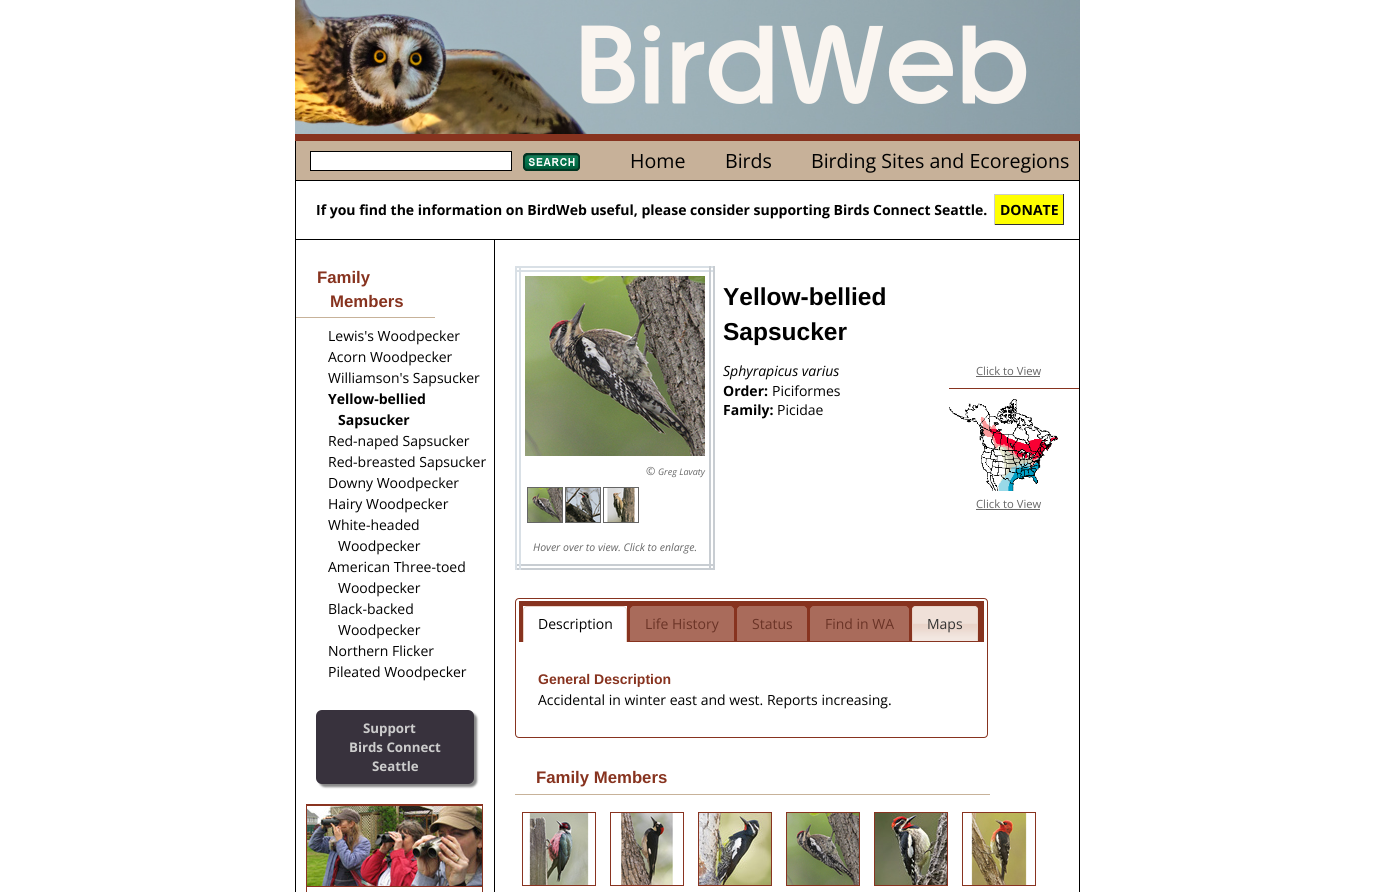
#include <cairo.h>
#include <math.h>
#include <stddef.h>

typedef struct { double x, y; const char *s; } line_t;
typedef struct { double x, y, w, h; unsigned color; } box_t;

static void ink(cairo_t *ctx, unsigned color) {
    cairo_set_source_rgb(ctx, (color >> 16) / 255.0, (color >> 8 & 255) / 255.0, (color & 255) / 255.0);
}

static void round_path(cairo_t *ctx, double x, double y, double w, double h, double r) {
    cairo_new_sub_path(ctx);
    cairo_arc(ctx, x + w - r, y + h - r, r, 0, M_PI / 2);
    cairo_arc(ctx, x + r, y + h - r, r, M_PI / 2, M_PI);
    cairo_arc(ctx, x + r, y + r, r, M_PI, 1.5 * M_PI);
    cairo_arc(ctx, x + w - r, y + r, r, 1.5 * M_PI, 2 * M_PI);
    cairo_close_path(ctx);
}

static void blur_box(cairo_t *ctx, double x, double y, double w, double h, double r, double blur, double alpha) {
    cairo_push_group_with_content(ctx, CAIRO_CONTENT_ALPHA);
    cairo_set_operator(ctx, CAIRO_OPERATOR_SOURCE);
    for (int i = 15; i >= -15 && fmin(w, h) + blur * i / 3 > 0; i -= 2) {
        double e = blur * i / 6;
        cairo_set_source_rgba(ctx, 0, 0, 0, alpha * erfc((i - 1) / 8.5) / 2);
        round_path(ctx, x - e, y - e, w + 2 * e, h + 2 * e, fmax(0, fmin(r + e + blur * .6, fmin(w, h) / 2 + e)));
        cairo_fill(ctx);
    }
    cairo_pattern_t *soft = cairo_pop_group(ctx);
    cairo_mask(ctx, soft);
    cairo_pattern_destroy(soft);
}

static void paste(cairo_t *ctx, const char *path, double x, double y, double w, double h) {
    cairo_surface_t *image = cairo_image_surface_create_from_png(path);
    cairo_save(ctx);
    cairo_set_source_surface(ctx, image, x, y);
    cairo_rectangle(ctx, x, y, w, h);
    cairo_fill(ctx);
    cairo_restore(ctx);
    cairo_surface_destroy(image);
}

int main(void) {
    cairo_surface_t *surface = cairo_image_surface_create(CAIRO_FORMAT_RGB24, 1375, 892);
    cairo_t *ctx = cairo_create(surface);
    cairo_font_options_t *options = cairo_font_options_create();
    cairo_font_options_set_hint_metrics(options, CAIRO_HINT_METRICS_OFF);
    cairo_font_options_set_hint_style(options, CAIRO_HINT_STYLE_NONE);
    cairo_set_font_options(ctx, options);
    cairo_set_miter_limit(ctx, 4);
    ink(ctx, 0xFFFFFF);
    cairo_paint(ctx);
    ink(ctx, 0x87331F);
    cairo_rectangle(ctx, 295, 134, 785, 7);
    cairo_fill(ctx);
    paste(ctx, "media/1.png", 295, 0, 785, 134);
    {
        static const box_t items[] = {
            {1079, 141, 1, 751, 0x000000},
            {295, 141, 1, 751, 0x000000},
            {296, 141, 783, 39, 0xC7B199},
        };
        for (size_t i = 0; i < sizeof items / sizeof *items; i++) {
            ink(ctx, items[i].color);
            cairo_rectangle(ctx, items[i].x, items[i].y, items[i].w, items[i].h);
            cairo_fill(ctx);
        }
    }
    ink(ctx, 0xFFFFFF);
    cairo_rectangle(ctx, 310.5, 151.5, 201, 19);
    cairo_fill_preserve(ctx);
    ink(ctx, 0x000000);
    cairo_set_line_width(ctx, 1);
    cairo_stroke(ctx);
    paste(ctx, "media/2.png", 523, 153, 57, 18);
    cairo_select_font_face(ctx, "Open Sans", CAIRO_FONT_SLANT_NORMAL, CAIRO_FONT_WEIGHT_NORMAL);
    cairo_set_font_size(ctx, 19.6);
    {
        static const line_t items[] = {
            {630, 168, "Home"},
            {725, 168, "Birds"},
            {811, 168, "Birding Sites and Ecoregions"},
        };
        for (size_t i = 0; i < sizeof items / sizeof *items; i++) {
            cairo_move_to(ctx, items[i].x, items[i].y);
            cairo_show_text(ctx, items[i].s);
        }
    }
    cairo_rectangle(ctx, 296, 180, 783, 1);
    cairo_fill(ctx);
    cairo_rectangle(ctx, 296, 239, 783, 1);
    cairo_fill(ctx);
    cairo_select_font_face(ctx, "Open Sans", CAIRO_FONT_SLANT_NORMAL, CAIRO_FONT_WEIGHT_BOLD);
    cairo_set_font_size(ctx, 14);
    cairo_move_to(ctx, 316, 215);
    cairo_show_text(ctx, "If you find the information on BirdWeb useful, please consider supporting Birds Connect Seattle.");
    ink(ctx, 0xFFFF00);
    cairo_rectangle(ctx, 995, 195, 68, 29);
    cairo_fill(ctx);
    ink(ctx, 0x000000);
    cairo_move_to(ctx, 1000, 215);
    cairo_show_text(ctx, "DONATE");
    {
        static const box_t items[] = {
            {994, 194, 70, 1, 0xCCCCCC},
            {1063, 194, 1, 31, 0x333333},
            {994, 224, 70, 1, 0x333333},
            {994, 194, 1, 31, 0xCCCCCC},
            {296, 317, 139, 1, 0xC7B299},
        };
        for (size_t i = 0; i < sizeof items / sizeof *items; i++) {
            ink(ctx, items[i].color);
            cairo_rectangle(ctx, items[i].x, items[i].y, items[i].w, items[i].h);
            cairo_fill(ctx);
        }
    }
    cairo_select_font_face(ctx, "Liberation Sans", CAIRO_FONT_SLANT_NORMAL, CAIRO_FONT_WEIGHT_BOLD);
    cairo_set_font_size(ctx, 16.75);
    ink(ctx, 0x87331F);
    cairo_move_to(ctx, 317, 283);
    cairo_show_text(ctx, "Family");
    cairo_move_to(ctx, 330, 307);
    cairo_show_text(ctx, "Members");
    cairo_select_font_face(ctx, "Open Sans", CAIRO_FONT_SLANT_NORMAL, CAIRO_FONT_WEIGHT_NORMAL);
    cairo_set_font_size(ctx, 14);
    ink(ctx, 0x000000);
    {
        static const line_t items[] = {
            {328, 341, "Lewis's Woodpecker"},
            {328, 362, "Acorn Woodpecker"},
            {328, 383, "Williamson's Sapsucker"},
        };
        for (size_t i = 0; i < sizeof items / sizeof *items; i++) {
            cairo_move_to(ctx, items[i].x, items[i].y);
            cairo_show_text(ctx, items[i].s);
        }
    }
    cairo_select_font_face(ctx, "Open Sans", CAIRO_FONT_SLANT_NORMAL, CAIRO_FONT_WEIGHT_BOLD);
    cairo_move_to(ctx, 328, 404);
    cairo_show_text(ctx, "Yellow-bellied");
    cairo_move_to(ctx, 338, 425);
    cairo_show_text(ctx, "Sapsucker");
    cairo_select_font_face(ctx, "Open Sans", CAIRO_FONT_SLANT_NORMAL, CAIRO_FONT_WEIGHT_NORMAL);
    {
        static const line_t items[] = {
            {328, 446, "Red-naped Sapsucker"},
            {328, 467, "Red-breasted Sapsucker"},
            {328, 488, "Downy Woodpecker"},
            {328, 509, "Hairy Woodpecker"},
            {328, 530, "White-headed"},
            {338, 551, "Woodpecker"},
            {328, 572, "American Three-toed"},
            {338, 593, "Woodpecker"},
            {328, 614, "Black-backed"},
            {338, 635, "Woodpecker"},
            {328, 656, "Northern Flicker"},
            {328, 677, "Pileated Woodpecker"},
        };
        for (size_t i = 0; i < sizeof items / sizeof *items; i++) {
            cairo_move_to(ctx, items[i].x, items[i].y);
            cairo_show_text(ctx, items[i].s);
        }
    }
    ink(ctx, 0x888888);
    blur_box(ctx, 319, 713, 158, 74, 6, 1, 1);
    ink(ctx, 0x38323D);
    round_path(ctx, 316, 710, 158, 74, 6);
    cairo_fill(ctx);
    cairo_select_font_face(ctx, "Open Sans", CAIRO_FONT_SLANT_NORMAL, CAIRO_FONT_WEIGHT_BOLD);
    cairo_set_font_size(ctx, 13.25);
    ink(ctx, 0xCCCCCC);
    {
        static const line_t items[] = {
            {363, 733, "Support"},
            {349, 752, "Birds Connect"},
            {372, 771, "Seattle"},
        };
        for (size_t i = 0; i < sizeof items / sizeof *items; i++) {
            cairo_move_to(ctx, items[i].x, items[i].y);
            cairo_show_text(ctx, items[i].s);
        }
    }
    cairo_rectangle(ctx, 306.5, 804.5, 176, 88);
    ink(ctx, 0x893320);
    cairo_stroke(ctx);
    cairo_rectangle(ctx, 307, 805, 175, 1);
    cairo_fill(ctx);
    cairo_rectangle(ctx, 307, 886, 175, 1);
    cairo_fill(ctx);
    paste(ctx, "media/3.png", 307, 806, 175, 80);
    {
        static const box_t items[] = {
            {494, 240, 1, 652, 0x000000},
            {515, 266, 200, 2, 0xD9E0E6},
            {515, 270, 200, 2, 0xD9E0E6},
            {709, 266, 2, 304, 0xC8CDD2},
            {713, 266, 2, 304, 0xC8CDD2},
            {515, 564, 200, 2, 0xC8CDD2},
            {515, 568, 200, 2, 0xC8CDD2},
            {515, 266, 2, 304, 0xD9E0E6},
            {519, 266, 2, 304, 0xD9E0E6},
        };
        for (size_t i = 0; i < sizeof items / sizeof *items; i++) {
            ink(ctx, items[i].color);
            cairo_rectangle(ctx, items[i].x, items[i].y, items[i].w, items[i].h);
            cairo_fill(ctx);
        }
    }
    paste(ctx, "media/4.png", 525, 276, 180, 180);
    cairo_select_font_face(ctx, "Open Sans", CAIRO_FONT_SLANT_ITALIC, CAIRO_FONT_WEIGHT_NORMAL);
    cairo_set_font_size(ctx, 11.25);
    ink(ctx, 0x666666);
    cairo_move_to(ctx, 646, 475);
    cairo_show_text(ctx, "©");
    cairo_set_font_size(ctx, 9);
    cairo_move_to(ctx, 658, 475);
    cairo_show_text(ctx, "Greg Lavaty");
    cairo_rectangle(ctx, 527.5, 487.5, 35, 35);
    cairo_stroke(ctx);
    cairo_rectangle(ctx, 565.5, 487.5, 35, 35);
    cairo_stroke(ctx);
    cairo_rectangle(ctx, 603.5, 487.5, 35, 35);
    cairo_stroke(ctx);
    paste(ctx, "media/5.png", 528, 488, 34, 34);
    paste(ctx, "media/6.png", 566, 488, 34, 34);
    paste(ctx, "media/7.png", 607, 488, 28, 34);
    cairo_set_font_size(ctx, 10.5);
    cairo_move_to(ctx, 533, 551);
    cairo_show_text(ctx, "Hover over to view. Click to enlarge.");
    cairo_select_font_face(ctx, "Liberation Sans", CAIRO_FONT_SLANT_NORMAL, CAIRO_FONT_WEIGHT_BOLD);
    cairo_set_font_size(ctx, 24.5);
    ink(ctx, 0x000000);
    cairo_move_to(ctx, 723, 305);
    cairo_show_text(ctx, "Yellow-bellied");
    cairo_move_to(ctx, 723, 340);
    cairo_show_text(ctx, "Sapsucker");
    cairo_select_font_face(ctx, "Open Sans", CAIRO_FONT_SLANT_ITALIC, CAIRO_FONT_WEIGHT_NORMAL);
    cairo_set_font_size(ctx, 14);
    cairo_move_to(ctx, 723, 376);
    cairo_show_text(ctx, "Sphyrapicus varius");
    cairo_select_font_face(ctx, "Open Sans", CAIRO_FONT_SLANT_NORMAL, CAIRO_FONT_WEIGHT_BOLD);
    cairo_move_to(ctx, 723, 396);
    cairo_show_text(ctx, "Order:");
    cairo_select_font_face(ctx, "Open Sans", CAIRO_FONT_SLANT_NORMAL, CAIRO_FONT_WEIGHT_NORMAL);
    cairo_move_to(ctx, 772, 396);
    cairo_show_text(ctx, "Piciformes");
    cairo_select_font_face(ctx, "Open Sans", CAIRO_FONT_SLANT_NORMAL, CAIRO_FONT_WEIGHT_BOLD);
    cairo_move_to(ctx, 723, 415);
    cairo_show_text(ctx, "Family:");
    cairo_select_font_face(ctx, "Open Sans", CAIRO_FONT_SLANT_NORMAL, CAIRO_FONT_WEIGHT_NORMAL);
    cairo_move_to(ctx, 777, 415);
    cairo_show_text(ctx, "Picidae");
    cairo_set_font_size(ctx, 11.25);
    ink(ctx, 0x666666);
    cairo_move_to(ctx, 976, 375);
    cairo_show_text(ctx, "Click to View");
    cairo_rectangle(ctx, 976, 376, 64, 1);
    cairo_fill(ctx);
    ink(ctx, 0x87331F);
    cairo_rectangle(ctx, 949, 388, 130, 1);
    cairo_fill(ctx);
    paste(ctx, "media/8.png", 949, 399, 109, 92);
    ink(ctx, 0x666666);
    cairo_move_to(ctx, 976, 508);
    cairo_show_text(ctx, "Click to View");
    cairo_rectangle(ctx, 976, 509, 64, 1);
    cairo_fill(ctx);
    round_path(ctx, 515.5, 598.5, 472, 139, 3.5);
    ink(ctx, 0x87331F);
    cairo_stroke(ctx);
    {
        static const box_t items[] = {
            {519, 601, 465, 41, 0x87331F},
            {524, 610, 102, 32, 0xFFFFFF},
            {523, 606, 104, 4, 0xFEFEFE},
        };
        for (size_t i = 0; i < sizeof items / sizeof *items; i++) {
            ink(ctx, items[i].color);
            cairo_rectangle(ctx, items[i].x, items[i].y, items[i].w, items[i].h);
            cairo_fill(ctx);
        }
    }
    ink(ctx, 0xE9D4C9);
    cairo_set_fill_rule(ctx, CAIRO_FILL_RULE_EVEN_ODD);
    cairo_new_path(ctx);
    cairo_move_to(ctx, 527, 606);
    cairo_line_to(ctx, 623, 606);
    cairo_curve_to(ctx, 625, 606, 627, 608, 627, 610);
    cairo_line_to(ctx, 627, 642);
    cairo_line_to(ctx, 523, 642);
    cairo_line_to(ctx, 523, 610);
    cairo_curve_to(ctx, 523, 608, 525, 606, 527, 606);
    cairo_close_path(ctx);
    cairo_move_to(ctx, 527, 607);
    cairo_line_to(ctx, 623, 607);
    cairo_curve_to(ctx, 625, 607, 626, 608, 626, 610);
    cairo_line_to(ctx, 626, 642);
    cairo_line_to(ctx, 524, 642);
    cairo_line_to(ctx, 524, 610);
    cairo_curve_to(ctx, 524, 608, 525, 607, 527, 607);
    cairo_close_path(ctx);
    cairo_fill(ctx);
    cairo_set_font_size(ctx, 14);
    ink(ctx, 0x000000);
    cairo_move_to(ctx, 538, 629);
    cairo_show_text(ctx, "Description");
    ink(ctx, 0xA96B5B);
    cairo_new_path(ctx);
    cairo_move_to(ctx, 634, 606);
    cairo_line_to(ctx, 730, 606);
    cairo_curve_to(ctx, 732, 606, 734, 608, 734, 610);
    cairo_line_to(ctx, 734, 641);
    cairo_line_to(ctx, 630, 641);
    cairo_line_to(ctx, 630, 610);
    cairo_curve_to(ctx, 630, 608, 632, 606, 634, 606);
    cairo_close_path(ctx);
    cairo_fill(ctx);
    cairo_new_path(ctx);
    cairo_move_to(ctx, 634, 606);
    cairo_line_to(ctx, 730, 606);
    cairo_curve_to(ctx, 732, 606, 734, 608, 734, 610);
    cairo_line_to(ctx, 734, 641);
    cairo_line_to(ctx, 630, 641);
    cairo_line_to(ctx, 630, 610);
    cairo_curve_to(ctx, 630, 608, 632, 606, 634, 606);
    cairo_close_path(ctx);
    cairo_move_to(ctx, 634, 607);
    cairo_line_to(ctx, 730, 607);
    cairo_curve_to(ctx, 732, 607, 733, 608, 733, 610);
    cairo_line_to(ctx, 733, 641);
    cairo_line_to(ctx, 631, 641);
    cairo_line_to(ctx, 631, 610);
    cairo_curve_to(ctx, 631, 608, 632, 607, 634, 607);
    cairo_close_path(ctx);
    cairo_fill(ctx);
    ink(ctx, 0x6A3326);
    cairo_move_to(ctx, 645, 629);
    cairo_show_text(ctx, "Life History");
    ink(ctx, 0xA96B5B);
    cairo_new_path(ctx);
    cairo_move_to(ctx, 741, 606);
    cairo_line_to(ctx, 803, 606);
    cairo_curve_to(ctx, 805, 606, 807, 608, 807, 610);
    cairo_line_to(ctx, 807, 641);
    cairo_line_to(ctx, 737, 641);
    cairo_line_to(ctx, 737, 610);
    cairo_curve_to(ctx, 737, 608, 739, 606, 741, 606);
    cairo_close_path(ctx);
    cairo_fill(ctx);
    cairo_new_path(ctx);
    cairo_move_to(ctx, 741, 606);
    cairo_line_to(ctx, 803, 606);
    cairo_curve_to(ctx, 805, 606, 807, 608, 807, 610);
    cairo_line_to(ctx, 807, 641);
    cairo_line_to(ctx, 737, 641);
    cairo_line_to(ctx, 737, 610);
    cairo_curve_to(ctx, 737, 608, 739, 606, 741, 606);
    cairo_close_path(ctx);
    cairo_move_to(ctx, 741, 607);
    cairo_line_to(ctx, 803, 607);
    cairo_curve_to(ctx, 805, 607, 806, 608, 806, 610);
    cairo_line_to(ctx, 806, 641);
    cairo_line_to(ctx, 738, 641);
    cairo_line_to(ctx, 738, 610);
    cairo_curve_to(ctx, 738, 608, 739, 607, 741, 607);
    cairo_close_path(ctx);
    cairo_fill(ctx);
    ink(ctx, 0x6A3326);
    cairo_move_to(ctx, 752, 629);
    cairo_show_text(ctx, "Status");
    ink(ctx, 0xA96B5B);
    cairo_new_path(ctx);
    cairo_move_to(ctx, 814, 606);
    cairo_line_to(ctx, 905, 606);
    cairo_curve_to(ctx, 907, 606, 909, 608, 909, 610);
    cairo_line_to(ctx, 909, 641);
    cairo_line_to(ctx, 810, 641);
    cairo_line_to(ctx, 810, 610);
    cairo_curve_to(ctx, 810, 608, 812, 606, 814, 606);
    cairo_close_path(ctx);
    cairo_fill(ctx);
    cairo_new_path(ctx);
    cairo_move_to(ctx, 814, 606);
    cairo_line_to(ctx, 905, 606);
    cairo_curve_to(ctx, 907, 606, 909, 608, 909, 610);
    cairo_line_to(ctx, 909, 641);
    cairo_line_to(ctx, 810, 641);
    cairo_line_to(ctx, 810, 610);
    cairo_curve_to(ctx, 810, 608, 812, 606, 814, 606);
    cairo_close_path(ctx);
    cairo_move_to(ctx, 814, 607);
    cairo_line_to(ctx, 905, 607);
    cairo_curve_to(ctx, 907, 607, 908, 608, 908, 610);
    cairo_line_to(ctx, 908, 641);
    cairo_line_to(ctx, 811, 641);
    cairo_line_to(ctx, 811, 610);
    cairo_curve_to(ctx, 811, 608, 812, 607, 814, 607);
    cairo_close_path(ctx);
    cairo_fill(ctx);
    ink(ctx, 0x6A3326);
    cairo_move_to(ctx, 825, 629);
    cairo_show_text(ctx, "Find in WA");
    paste(ctx, "media/9.png", 912, 606, 66, 35);
    ink(ctx, 0xE9D4C9);
    cairo_new_path(ctx);
    cairo_move_to(ctx, 916, 606);
    cairo_line_to(ctx, 974, 606);
    cairo_curve_to(ctx, 976, 606, 978, 608, 978, 610);
    cairo_line_to(ctx, 978, 641);
    cairo_line_to(ctx, 912, 641);
    cairo_line_to(ctx, 912, 610);
    cairo_curve_to(ctx, 912, 608, 914, 606, 916, 606);
    cairo_close_path(ctx);
    cairo_move_to(ctx, 916, 607);
    cairo_line_to(ctx, 974, 607);
    cairo_curve_to(ctx, 976, 607, 977, 608, 977, 610);
    cairo_line_to(ctx, 977, 641);
    cairo_line_to(ctx, 913, 641);
    cairo_line_to(ctx, 913, 610);
    cairo_curve_to(ctx, 913, 608, 914, 607, 916, 607);
    cairo_close_path(ctx);
    cairo_fill(ctx);
    ink(ctx, 0x333333);
    cairo_move_to(ctx, 927, 629);
    cairo_show_text(ctx, "Maps");
    cairo_select_font_face(ctx, "Liberation Sans", CAIRO_FONT_SLANT_NORMAL, CAIRO_FONT_WEIGHT_BOLD);
    ink(ctx, 0x87331F);
    cairo_move_to(ctx, 538, 684);
    cairo_show_text(ctx, "General Description");
    cairo_select_font_face(ctx, "Open Sans", CAIRO_FONT_SLANT_NORMAL, CAIRO_FONT_WEIGHT_NORMAL);
    ink(ctx, 0x000000);
    cairo_move_to(ctx, 538, 705);
    cairo_show_text(ctx, "Accidental in winter east and west. Reports increasing.");
    ink(ctx, 0xC7B299);
    cairo_rectangle(ctx, 515, 794, 475, 1);
    cairo_fill(ctx);
    cairo_select_font_face(ctx, "Liberation Sans", CAIRO_FONT_SLANT_NORMAL, CAIRO_FONT_WEIGHT_BOLD);
    cairo_set_font_size(ctx, 16.75);
    ink(ctx, 0x87331F);
    cairo_move_to(ctx, 536, 783);
    cairo_show_text(ctx, "Family Members");
    cairo_rectangle(ctx, 522.5, 812.5, 73, 73);
    ink(ctx, 0x893320);
    cairo_stroke(ctx);
    paste(ctx, "media/10.png", 529, 813, 60, 72);
    cairo_rectangle(ctx, 610.5, 812.5, 73, 73);
    cairo_stroke(ctx);
    paste(ctx, "media/11.png", 621, 813, 52, 72);
    cairo_rectangle(ctx, 698.5, 812.5, 73, 73);
    cairo_stroke(ctx);
    paste(ctx, "media/12.png", 699, 813, 72, 72);
    cairo_rectangle(ctx, 786.5, 812.5, 73, 73);
    cairo_stroke(ctx);
    paste(ctx, "media/13.png", 787, 813, 72, 72);
    cairo_rectangle(ctx, 874.5, 812.5, 73, 73);
    cairo_stroke(ctx);
    paste(ctx, "media/14.png", 875, 813, 72, 72);
    cairo_rectangle(ctx, 962.5, 812.5, 73, 73);
    cairo_stroke(ctx);
    paste(ctx, "media/15.png", 971, 813, 56, 72);
    cairo_surface_write_to_png(surface, "image.png");
    cairo_font_options_destroy(options);
    cairo_destroy(ctx);
    cairo_surface_destroy(surface);
    return 0;
}
